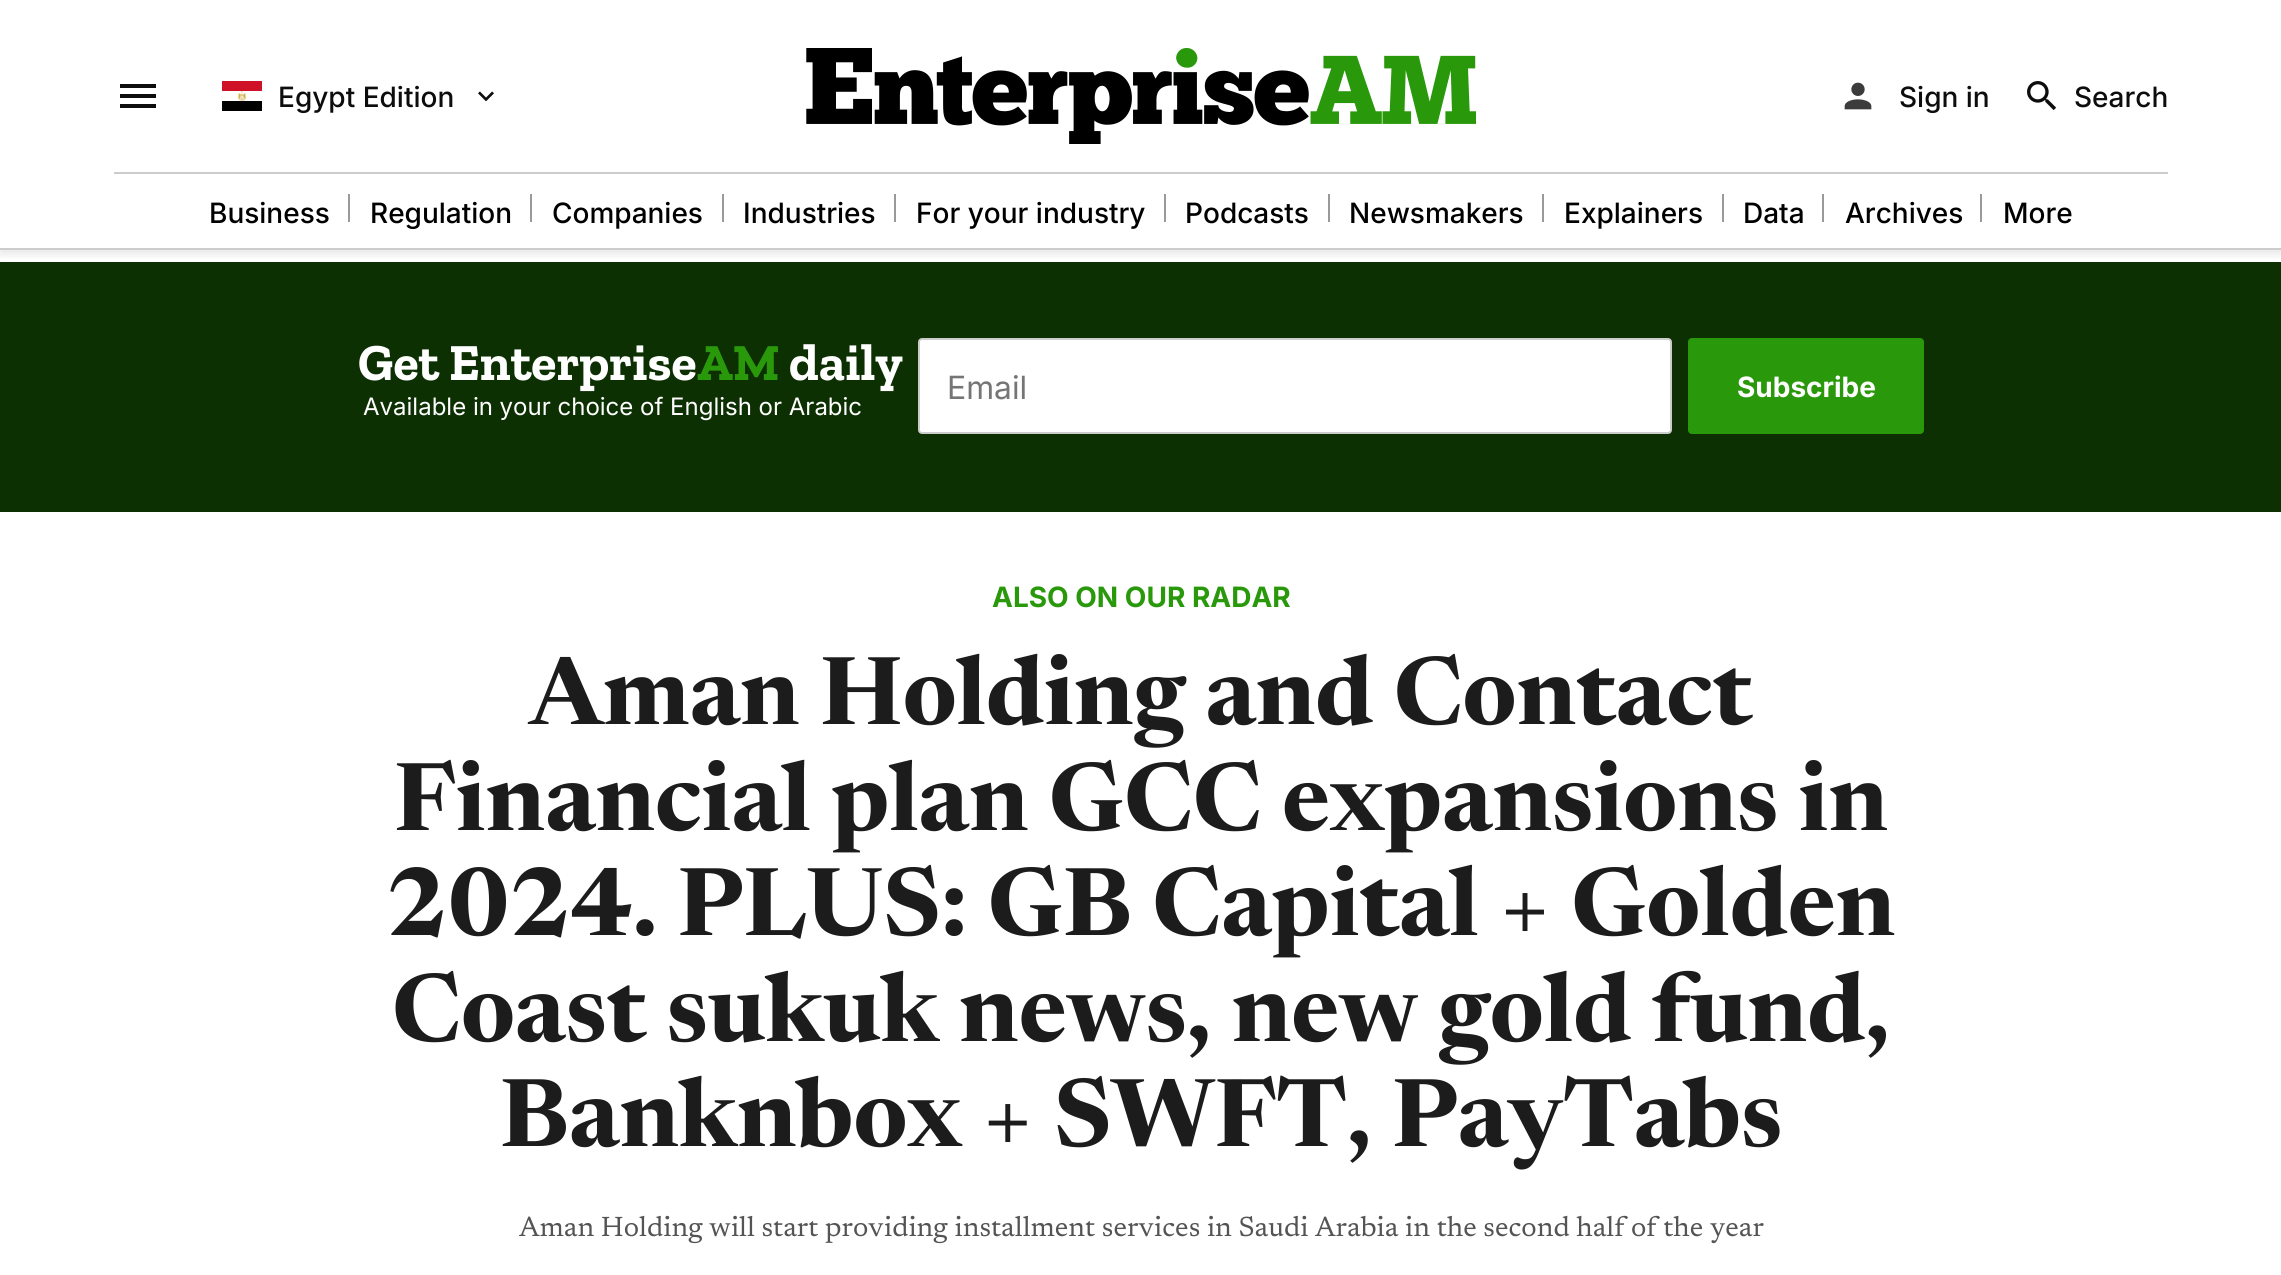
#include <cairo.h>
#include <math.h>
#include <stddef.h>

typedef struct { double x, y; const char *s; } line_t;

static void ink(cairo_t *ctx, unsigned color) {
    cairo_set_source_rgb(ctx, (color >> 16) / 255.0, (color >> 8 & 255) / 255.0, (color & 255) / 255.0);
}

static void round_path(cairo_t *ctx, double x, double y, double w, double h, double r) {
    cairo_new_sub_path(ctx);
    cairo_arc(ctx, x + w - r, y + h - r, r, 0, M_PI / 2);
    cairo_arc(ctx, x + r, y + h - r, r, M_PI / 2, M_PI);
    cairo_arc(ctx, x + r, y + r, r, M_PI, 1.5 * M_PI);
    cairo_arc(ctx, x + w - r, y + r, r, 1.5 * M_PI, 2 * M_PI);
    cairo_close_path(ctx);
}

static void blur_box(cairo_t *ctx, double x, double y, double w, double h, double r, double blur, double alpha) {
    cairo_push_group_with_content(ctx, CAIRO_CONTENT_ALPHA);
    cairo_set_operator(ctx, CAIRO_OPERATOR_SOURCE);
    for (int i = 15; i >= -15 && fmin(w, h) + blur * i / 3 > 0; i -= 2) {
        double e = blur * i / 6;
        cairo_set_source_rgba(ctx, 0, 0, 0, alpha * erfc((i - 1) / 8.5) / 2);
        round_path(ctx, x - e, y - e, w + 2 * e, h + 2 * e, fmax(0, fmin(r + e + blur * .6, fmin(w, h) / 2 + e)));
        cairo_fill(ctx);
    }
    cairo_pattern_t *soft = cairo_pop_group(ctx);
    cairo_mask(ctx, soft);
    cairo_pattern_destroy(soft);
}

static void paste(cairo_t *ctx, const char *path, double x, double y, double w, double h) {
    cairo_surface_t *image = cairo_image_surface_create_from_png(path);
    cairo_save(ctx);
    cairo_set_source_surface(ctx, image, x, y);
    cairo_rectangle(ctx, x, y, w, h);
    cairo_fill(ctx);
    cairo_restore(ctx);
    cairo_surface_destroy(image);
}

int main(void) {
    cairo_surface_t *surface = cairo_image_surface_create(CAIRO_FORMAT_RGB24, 2281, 1275);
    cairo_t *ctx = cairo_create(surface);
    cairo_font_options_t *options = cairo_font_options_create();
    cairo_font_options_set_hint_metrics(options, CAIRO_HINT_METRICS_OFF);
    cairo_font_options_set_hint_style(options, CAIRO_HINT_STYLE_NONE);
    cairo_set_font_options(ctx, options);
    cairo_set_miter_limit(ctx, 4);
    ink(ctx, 0xFFFFFF);
    cairo_paint(ctx);
    cairo_save(ctx);
    cairo_rectangle(ctx, 0, 262, 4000, 250);
    cairo_clip(ctx);
    cairo_rectangle(ctx, -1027, -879, 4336, 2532);
    ink(ctx, 0x0D3003);
    cairo_set_line_width(ctx, 2282);
    cairo_stroke(ctx);
    cairo_restore(ctx);
    ink(ctx, 0x0D3003);
    cairo_rectangle(ctx, 114, 262, 2054, 250);
    cairo_fill(ctx);
    cairo_save(ctx);
    cairo_rectangle(ctx, 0, 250, 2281, 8);
    cairo_clip(ctx);
    ink(ctx, 0x000000);
    blur_box(ctx, 0, 4, 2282, 250, 0, 5, 0.1);
    cairo_restore(ctx);
    ink(ctx, 0xCCCCCC);
    cairo_rectangle(ctx, 114, 172, 2054, 2);
    cairo_fill(ctx);
    ink(ctx, 0x0D0D0D);
    cairo_new_path(ctx);
    cairo_move_to(ctx, 120, 84);
    cairo_line_to(ctx, 156, 84);
    cairo_line_to(ctx, 156, 88);
    cairo_line_to(ctx, 120, 88);
    cairo_close_path(ctx);
    cairo_move_to(ctx, 120, 94);
    cairo_line_to(ctx, 156, 94);
    cairo_line_to(ctx, 156, 98);
    cairo_line_to(ctx, 120, 98);
    cairo_close_path(ctx);
    cairo_move_to(ctx, 120, 104);
    cairo_line_to(ctx, 156, 104);
    cairo_line_to(ctx, 156, 108);
    cairo_line_to(ctx, 120, 108);
    cairo_close_path(ctx);
    cairo_fill(ctx);
    paste(ctx, "media/1.png", 222, 81, 40, 30);
    cairo_select_font_face(ctx, "Inter Medium", CAIRO_FONT_SLANT_NORMAL, CAIRO_FONT_WEIGHT_NORMAL);
    cairo_set_font_size(ctx, 28);
    cairo_move_to(ctx, 278, 107);
    cairo_show_text(ctx, "Egypt Edition");
    paste(ctx, "media/2.png", 478, 91, 16, 11);
    paste(ctx, "media/3.png", 806, 48, 670, 96);
    paste(ctx, "media/4.png", 1844, 82, 28, 28);
    cairo_move_to(ctx, 1899, 107);
    cairo_show_text(ctx, "Sign in");
    paste(ctx, "media/5.png", 2027, 81, 30, 30);
    cairo_move_to(ctx, 2074, 107);
    cairo_show_text(ctx, "Search");
    ink(ctx, 0xCCCCCC);
    cairo_rectangle(ctx, 0, 248, 2281, 2);
    cairo_fill(ctx);
    ink(ctx, 0x000000);
    cairo_move_to(ctx, 209, 223);
    cairo_show_text(ctx, "Business");
    ink(ctx, 0x999999);
    cairo_rectangle(ctx, 348, 194, 2, 28);
    cairo_fill(ctx);
    ink(ctx, 0x000000);
    cairo_move_to(ctx, 370, 223);
    cairo_show_text(ctx, "Regulation");
    ink(ctx, 0x999999);
    cairo_rectangle(ctx, 530, 194, 2, 28);
    cairo_fill(ctx);
    ink(ctx, 0x000000);
    cairo_move_to(ctx, 552, 223);
    cairo_show_text(ctx, "Companies");
    ink(ctx, 0x999999);
    cairo_rectangle(ctx, 722, 194, 2, 28);
    cairo_fill(ctx);
    ink(ctx, 0x000000);
    cairo_move_to(ctx, 743, 223);
    cairo_show_text(ctx, "Industries");
    ink(ctx, 0x999999);
    cairo_rectangle(ctx, 894, 194, 2, 28);
    cairo_fill(ctx);
    ink(ctx, 0x000000);
    cairo_move_to(ctx, 916, 223);
    cairo_show_text(ctx, "For your industry");
    ink(ctx, 0x999999);
    cairo_rectangle(ctx, 1164, 194, 2, 28);
    cairo_fill(ctx);
    ink(ctx, 0x000000);
    cairo_move_to(ctx, 1185, 223);
    cairo_show_text(ctx, "Podcasts");
    ink(ctx, 0x999999);
    cairo_rectangle(ctx, 1328, 194, 2, 28);
    cairo_fill(ctx);
    ink(ctx, 0x000000);
    cairo_move_to(ctx, 1349, 223);
    cairo_show_text(ctx, "Newsmakers");
    ink(ctx, 0x999999);
    cairo_rectangle(ctx, 1542, 194, 2, 28);
    cairo_fill(ctx);
    ink(ctx, 0x000000);
    cairo_move_to(ctx, 1564, 223);
    cairo_show_text(ctx, "Explainers");
    ink(ctx, 0x999999);
    cairo_rectangle(ctx, 1722, 194, 2, 28);
    cairo_fill(ctx);
    ink(ctx, 0x000000);
    cairo_move_to(ctx, 1743, 223);
    cairo_show_text(ctx, "Data");
    ink(ctx, 0x999999);
    cairo_rectangle(ctx, 1822, 194, 2, 28);
    cairo_fill(ctx);
    ink(ctx, 0x000000);
    cairo_move_to(ctx, 1845, 223);
    cairo_show_text(ctx, "Archives");
    ink(ctx, 0x999999);
    cairo_rectangle(ctx, 1980, 194, 2, 28);
    cairo_fill(ctx);
    ink(ctx, 0x000000);
    cairo_move_to(ctx, 2003, 223);
    cairo_show_text(ctx, "More");
    cairo_select_font_face(ctx, "Zilla Slab", CAIRO_FONT_SLANT_NORMAL, CAIRO_FONT_WEIGHT_BOLD);
    cairo_set_font_size(ctx, 52);
    ink(ctx, 0xFFFFFF);
    cairo_move_to(ctx, 358, 380);
    cairo_show_text(ctx, "Get Enterprise");
    ink(ctx, 0x29990B);
    cairo_move_to(ctx, 697, 380);
    cairo_show_text(ctx, "AM");
    ink(ctx, 0xFFFFFF);
    cairo_move_to(ctx, 789, 380);
    cairo_show_text(ctx, "daily");
    cairo_select_font_face(ctx, "Inter", CAIRO_FONT_SLANT_NORMAL, CAIRO_FONT_WEIGHT_NORMAL);
    cairo_set_font_size(ctx, 24);
    cairo_move_to(ctx, 363, 415);
    cairo_show_text(ctx, "Available in your choice of English or Arabic");
    round_path(ctx, 919, 339, 752, 94, 3);
    cairo_fill_preserve(ctx);
    ink(ctx, 0xCCCCCC);
    cairo_stroke(ctx);
    cairo_select_font_face(ctx, "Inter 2", CAIRO_FONT_SLANT_NORMAL, CAIRO_FONT_WEIGHT_NORMAL);
    cairo_set_font_size(ctx, 32);
    ink(ctx, 0x757575);
    cairo_move_to(ctx, 947, 399);
    cairo_show_text(ctx, "Email");
    ink(ctx, 0x29990B);
    round_path(ctx, 1688, 338, 236, 96, 4);
    cairo_fill(ctx);
    cairo_select_font_face(ctx, "Inter", CAIRO_FONT_SLANT_NORMAL, CAIRO_FONT_WEIGHT_BOLD);
    cairo_set_font_size(ctx, 28);
    ink(ctx, 0xFFFFFF);
    cairo_move_to(ctx, 1737, 397);
    cairo_show_text(ctx, "Subscribe");
    ink(ctx, 0x29990B);
    cairo_move_to(ctx, 992, 607);
    cairo_show_text(ctx, "ALSO ON OUR RADAR");
    cairo_select_font_face(ctx, "Newsreader", CAIRO_FONT_SLANT_NORMAL, CAIRO_FONT_WEIGHT_BOLD);
    cairo_set_font_size(ctx, 96);
    ink(ctx, 0x1C1C1C);
    {
        static const line_t items[] = {
            {529, 724, "Aman Holding and Contact"},
            {394, 830, "Financial plan GCC expansions in"},
            {386, 935, "2024. PLUS: GB Capital + Golden"},
            {392, 1041, "Coast sukuk news, new gold fund,"},
            {500, 1146, "Banknbox + SWFT, PayTabs"},
        };
        for (size_t i = 0; i < sizeof items / sizeof *items; i++) {
            cairo_move_to(ctx, items[i].x, items[i].y);
            cairo_show_text(ctx, items[i].s);
        }
    }
    cairo_select_font_face(ctx, "Newsreader", CAIRO_FONT_SLANT_NORMAL, CAIRO_FONT_WEIGHT_NORMAL);
    cairo_set_font_size(ctx, 28);
    ink(ctx, 0x545454);
    cairo_move_to(ctx, 519, 1236);
    cairo_show_text(ctx, "Aman Holding will start providing installment services in Saudi Arabia in the second half of the year");
    cairo_surface_write_to_png(surface, "image.png");
    cairo_font_options_destroy(options);
    cairo_destroy(ctx);
    cairo_surface_destroy(surface);
    return 0;
}
